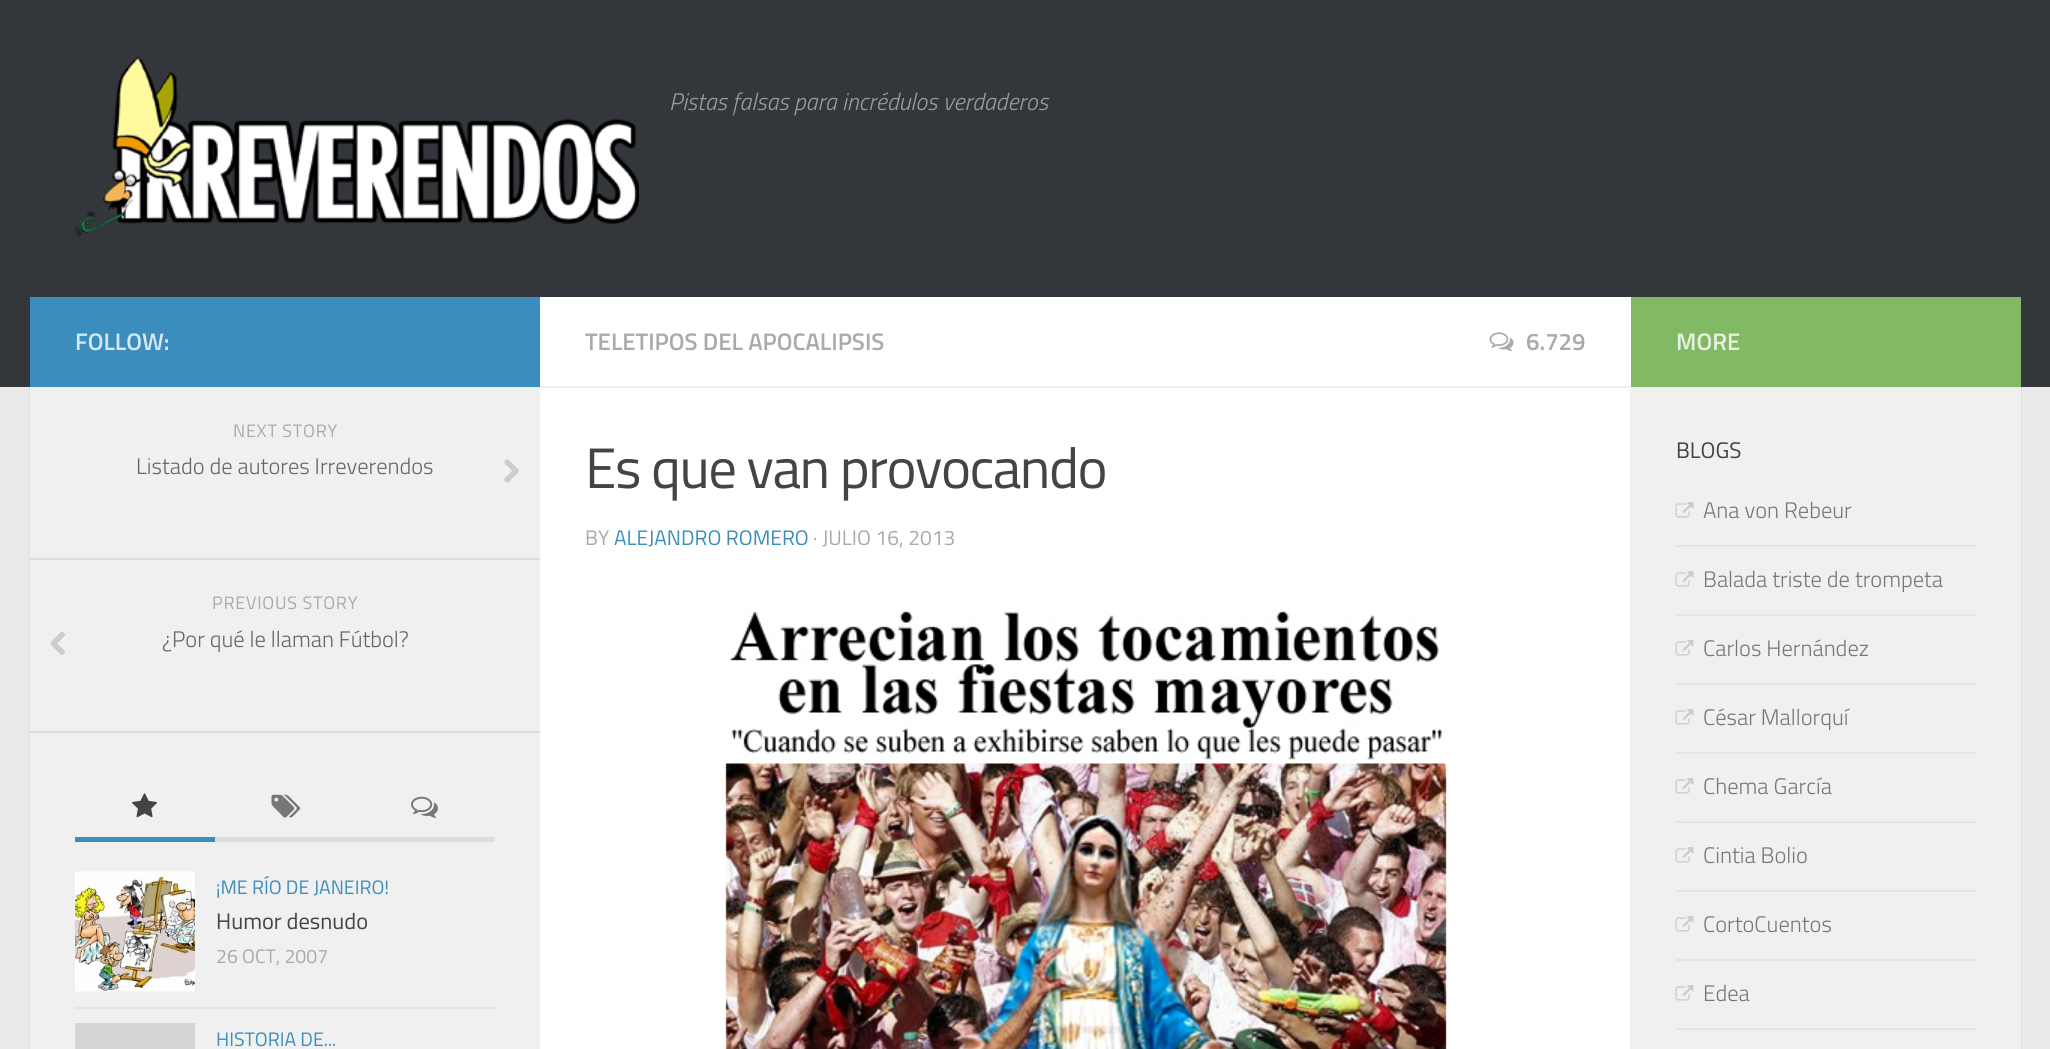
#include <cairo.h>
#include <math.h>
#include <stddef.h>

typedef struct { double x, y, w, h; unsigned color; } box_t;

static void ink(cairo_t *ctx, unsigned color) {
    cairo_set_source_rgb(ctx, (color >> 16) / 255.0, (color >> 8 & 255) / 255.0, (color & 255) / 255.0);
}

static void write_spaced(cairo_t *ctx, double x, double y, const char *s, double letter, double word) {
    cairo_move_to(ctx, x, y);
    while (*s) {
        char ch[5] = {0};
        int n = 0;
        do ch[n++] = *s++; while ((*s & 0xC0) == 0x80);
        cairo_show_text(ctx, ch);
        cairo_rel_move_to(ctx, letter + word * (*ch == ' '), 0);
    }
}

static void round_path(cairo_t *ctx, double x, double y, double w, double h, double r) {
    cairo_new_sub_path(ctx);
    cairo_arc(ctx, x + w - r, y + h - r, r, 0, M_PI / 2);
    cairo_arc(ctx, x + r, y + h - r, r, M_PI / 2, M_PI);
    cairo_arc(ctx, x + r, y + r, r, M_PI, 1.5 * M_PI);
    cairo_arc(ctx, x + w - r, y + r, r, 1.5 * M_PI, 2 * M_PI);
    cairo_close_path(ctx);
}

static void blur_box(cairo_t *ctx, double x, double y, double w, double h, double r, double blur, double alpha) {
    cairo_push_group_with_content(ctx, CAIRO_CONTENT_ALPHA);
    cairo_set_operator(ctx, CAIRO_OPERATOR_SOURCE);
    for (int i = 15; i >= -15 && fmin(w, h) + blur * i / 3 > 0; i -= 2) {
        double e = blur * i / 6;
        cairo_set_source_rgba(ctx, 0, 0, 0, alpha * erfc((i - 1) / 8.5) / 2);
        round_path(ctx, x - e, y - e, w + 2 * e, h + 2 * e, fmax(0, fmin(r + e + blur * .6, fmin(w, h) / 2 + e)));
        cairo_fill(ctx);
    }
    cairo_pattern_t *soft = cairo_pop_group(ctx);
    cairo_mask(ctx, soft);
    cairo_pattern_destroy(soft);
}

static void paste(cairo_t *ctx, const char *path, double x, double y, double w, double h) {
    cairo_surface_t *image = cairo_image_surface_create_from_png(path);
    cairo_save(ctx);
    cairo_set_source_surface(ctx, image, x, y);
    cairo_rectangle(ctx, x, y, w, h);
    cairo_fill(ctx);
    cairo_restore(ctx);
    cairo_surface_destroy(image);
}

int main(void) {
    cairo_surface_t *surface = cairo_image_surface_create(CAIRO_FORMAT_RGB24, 2050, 1049);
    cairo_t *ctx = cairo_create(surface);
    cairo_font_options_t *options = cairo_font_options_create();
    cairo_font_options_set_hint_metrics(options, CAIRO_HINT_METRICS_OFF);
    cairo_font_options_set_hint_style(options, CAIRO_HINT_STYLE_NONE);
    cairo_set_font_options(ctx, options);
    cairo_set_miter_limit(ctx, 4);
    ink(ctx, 0xEAEAEA);
    cairo_paint(ctx);
    ink(ctx, 0x000000);
    blur_box(ctx, 30, 299, 1991, 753, 0, 1, 0.1);
    ink(ctx, 0x33363B);
    cairo_rectangle(ctx, 0, 0, 2050, 387);
    cairo_fill(ctx);
    paste(ctx, "media/1.png", 75, 57, 564, 180);
    cairo_select_font_face(ctx, "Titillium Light", CAIRO_FONT_SLANT_ITALIC, CAIRO_FONT_WEIGHT_NORMAL);
    cairo_set_font_size(ctx, 24);
    ink(ctx, 0x999B9D);
    cairo_move_to(ctx, 669, 110);
    cairo_show_text(ctx, "Pistas falsas para incrédulos verdaderos");
    {
        static const box_t items[] = {
            {540, 388, 1090, 661, 0xFFFFFF},
            {1630, 387, 391, 662, 0xF0F0F0},
            {30, 389, 510, 660, 0xF0F0F0},
            {30, 297, 510, 90, 0x3B8DBD},
        };
        for (size_t i = 0; i < sizeof items / sizeof *items; i++) {
            ink(ctx, items[i].color);
            cairo_rectangle(ctx, items[i].x, items[i].y, items[i].w, items[i].h);
            cairo_fill(ctx);
        }
    }
    cairo_select_font_face(ctx, "Titillium SemiBold", CAIRO_FONT_SLANT_NORMAL, CAIRO_FONT_WEIGHT_NORMAL);
    ink(ctx, 0xD8E8F2);
    cairo_move_to(ctx, 75, 350);
    cairo_show_text(ctx, "FOLLOW:");
    ink(ctx, 0xEEEEEE);
    cairo_rectangle(ctx, 30, 387, 510, 2);
    cairo_fill(ctx);
    ink(ctx, 0xDDDDDD);
    cairo_rectangle(ctx, 30, 558, 510, 2);
    cairo_fill(ctx);
    cairo_select_font_face(ctx, "Titillium", CAIRO_FONT_SLANT_NORMAL, CAIRO_FONT_WEIGHT_NORMAL);
    cairo_set_font_size(ctx, 18);
    ink(ctx, 0xAAAAAA);
    write_spaced(ctx, 233, 437, "NEXT STORY", 0.75, 0);
    cairo_select_font_face(ctx, "Titillium Light", CAIRO_FONT_SLANT_NORMAL, CAIRO_FONT_WEIGHT_NORMAL);
    cairo_set_font_size(ctx, 22.5);
    ink(ctx, 0x666666);
    cairo_move_to(ctx, 136, 474);
    cairo_show_text(ctx, "Listado de autores Irreverendos");
    paste(ctx, "media/2.png", 504, 459, 15, 24);
    ink(ctx, 0xDDDDDD);
    cairo_rectangle(ctx, 30, 731, 510, 2);
    cairo_fill(ctx);
    cairo_select_font_face(ctx, "Titillium", CAIRO_FONT_SLANT_NORMAL, CAIRO_FONT_WEIGHT_NORMAL);
    cairo_set_font_size(ctx, 18);
    ink(ctx, 0xAAAAAA);
    write_spaced(ctx, 212, 609, "PREVIOUS STORY", 0.75, 0);
    paste(ctx, "media/3.png", 50, 631, 15, 24);
    cairo_select_font_face(ctx, "Titillium Light", CAIRO_FONT_SLANT_NORMAL, CAIRO_FONT_WEIGHT_NORMAL);
    cairo_set_font_size(ctx, 22.5);
    ink(ctx, 0x666666);
    cairo_move_to(ctx, 162, 647);
    cairo_show_text(ctx, "¿Por qué le llaman Fútbol?");
    ink(ctx, 0xDDDDDD);
    cairo_rectangle(ctx, 215, 837, 280, 5);
    cairo_fill(ctx);
    ink(ctx, 0x3B8DBD);
    cairo_rectangle(ctx, 75, 837, 140, 5);
    cairo_fill(ctx);
    paste(ctx, "media/4.png", 132, 793, 25, 25);
    paste(ctx, "media/5.png", 271, 794, 30, 24);
    paste(ctx, "media/6.png", 411, 796, 27, 22);
    ink(ctx, 0xE4E4E4);
    cairo_rectangle(ctx, 75, 1007, 420, 2);
    cairo_fill(ctx);
    paste(ctx, "media/7.png", 75, 871, 120, 121);
    cairo_select_font_face(ctx, "Titillium", CAIRO_FONT_SLANT_NORMAL, CAIRO_FONT_WEIGHT_NORMAL);
    cairo_set_font_size(ctx, 19.5);
    ink(ctx, 0x3B8DBD);
    cairo_move_to(ctx, 216, 894);
    cairo_show_text(ctx, "¡ME RÍO DE JANEIRO!");
    cairo_set_font_size(ctx, 22.5);
    ink(ctx, 0x444444);
    cairo_move_to(ctx, 216, 929);
    cairo_show_text(ctx, "Humor desnudo");
    cairo_set_font_size(ctx, 19.5);
    ink(ctx, 0xAAAAAA);
    cairo_move_to(ctx, 216, 963);
    cairo_show_text(ctx, "26 OCT, 2007");
    ink(ctx, 0xD5D5D5);
    cairo_rectangle(ctx, 75, 1023, 120, 26);
    cairo_fill(ctx);
    ink(ctx, 0x3B8DBD);
    cairo_move_to(ctx, 216, 1046);
    cairo_show_text(ctx, "HISTORIA DE...");
    ink(ctx, 0xFFFFFF);
    cairo_rectangle(ctx, 540, 297, 1091, 89);
    cairo_fill(ctx);
    ink(ctx, 0xEEEEEE);
    cairo_rectangle(ctx, 540, 386, 1091, 2);
    cairo_fill(ctx);
    cairo_select_font_face(ctx, "Titillium SemiBold", CAIRO_FONT_SLANT_NORMAL, CAIRO_FONT_WEIGHT_NORMAL);
    cairo_set_font_size(ctx, 24);
    ink(ctx, 0xAAAAAA);
    cairo_move_to(ctx, 585, 350);
    cairo_show_text(ctx, "TELETIPOS DEL APOCALIPSIS");
    paste(ctx, "media/8.png", 1489, 332, 25, 20);
    cairo_move_to(ctx, 1526, 350);
    cairo_show_text(ctx, "6.729");
    cairo_select_font_face(ctx, "Titillium", CAIRO_FONT_SLANT_NORMAL, CAIRO_FONT_WEIGHT_NORMAL);
    cairo_set_font_size(ctx, 57);
    ink(ctx, 0x444444);
    write_spaced(ctx, 585, 488, "Es que van provocando", -1.5, 0);
    cairo_set_font_size(ctx, 21);
    ink(ctx, 0xAAAAAA);
    cairo_move_to(ctx, 585, 545);
    cairo_show_text(ctx, "BY");
    ink(ctx, 0x3B8DBD);
    cairo_move_to(ctx, 614, 545);
    cairo_show_text(ctx, "ALEJANDRO ROMERO");
    ink(ctx, 0xAAAAAA);
    cairo_move_to(ctx, 813, 545);
    cairo_show_text(ctx, "· JULIO 16, 2013");
    paste(ctx, "media/9.png", 725, 611, 722, 438);
    ink(ctx, 0x82B965);
    cairo_rectangle(ctx, 1631, 297, 390, 90);
    cairo_fill(ctx);
    cairo_select_font_face(ctx, "Titillium SemiBold", CAIRO_FONT_SLANT_NORMAL, CAIRO_FONT_WEIGHT_NORMAL);
    cairo_set_font_size(ctx, 24);
    ink(ctx, 0xE6F1E0);
    cairo_move_to(ctx, 1676, 350);
    cairo_show_text(ctx, "MORE");
    cairo_select_font_face(ctx, "Titillium", CAIRO_FONT_SLANT_NORMAL, CAIRO_FONT_WEIGHT_NORMAL);
    cairo_set_font_size(ctx, 22.5);
    ink(ctx, 0x444444);
    cairo_move_to(ctx, 1676, 458);
    cairo_show_text(ctx, "BLOGS");
    ink(ctx, 0xE4E4E4);
    cairo_rectangle(ctx, 1676, 545, 300, 2);
    cairo_fill(ctx);
    paste(ctx, "media/10.png", 1675, 502, 19, 16);
    cairo_select_font_face(ctx, "Titillium Light", CAIRO_FONT_SLANT_NORMAL, CAIRO_FONT_WEIGHT_NORMAL);
    ink(ctx, 0x777777);
    cairo_move_to(ctx, 1703, 518);
    cairo_show_text(ctx, "Ana von Rebeur");
    ink(ctx, 0xE4E4E4);
    cairo_rectangle(ctx, 1676, 614, 300, 2);
    cairo_fill(ctx);
    paste(ctx, "media/10.png", 1675, 571, 19, 16);
    ink(ctx, 0x777777);
    cairo_move_to(ctx, 1703, 587);
    cairo_show_text(ctx, "Balada triste de trompeta");
    ink(ctx, 0xE4E4E4);
    cairo_rectangle(ctx, 1676, 683, 300, 2);
    cairo_fill(ctx);
    paste(ctx, "media/10.png", 1675, 640, 19, 16);
    ink(ctx, 0x777777);
    cairo_move_to(ctx, 1703, 656);
    cairo_show_text(ctx, "Carlos Hernández");
    ink(ctx, 0xE4E4E4);
    cairo_rectangle(ctx, 1676, 752, 300, 2);
    cairo_fill(ctx);
    paste(ctx, "media/10.png", 1675, 709, 19, 16);
    ink(ctx, 0x777777);
    cairo_move_to(ctx, 1703, 725);
    cairo_show_text(ctx, "César Mallorquí");
    ink(ctx, 0xE4E4E4);
    cairo_rectangle(ctx, 1676, 821, 300, 2);
    cairo_fill(ctx);
    paste(ctx, "media/10.png", 1675, 778, 19, 16);
    ink(ctx, 0x777777);
    cairo_move_to(ctx, 1703, 794);
    cairo_show_text(ctx, "Chema García");
    ink(ctx, 0xE4E4E4);
    cairo_rectangle(ctx, 1676, 890, 300, 2);
    cairo_fill(ctx);
    paste(ctx, "media/10.png", 1675, 847, 19, 16);
    ink(ctx, 0x777777);
    cairo_move_to(ctx, 1703, 863);
    cairo_show_text(ctx, "Cintia Bolio");
    ink(ctx, 0xE4E4E4);
    cairo_rectangle(ctx, 1676, 959, 300, 2);
    cairo_fill(ctx);
    paste(ctx, "media/10.png", 1675, 916, 19, 16);
    ink(ctx, 0x777777);
    cairo_move_to(ctx, 1703, 932);
    cairo_show_text(ctx, "CortoCuentos");
    ink(ctx, 0xE4E4E4);
    cairo_rectangle(ctx, 1676, 1028, 300, 2);
    cairo_fill(ctx);
    paste(ctx, "media/10.png", 1675, 985, 19, 16);
    ink(ctx, 0x777777);
    cairo_move_to(ctx, 1703, 1001);
    cairo_show_text(ctx, "Edea");
    cairo_surface_write_to_png(surface, "image.png");
    cairo_font_options_destroy(options);
    cairo_destroy(ctx);
    cairo_surface_destroy(surface);
    return 0;
}
